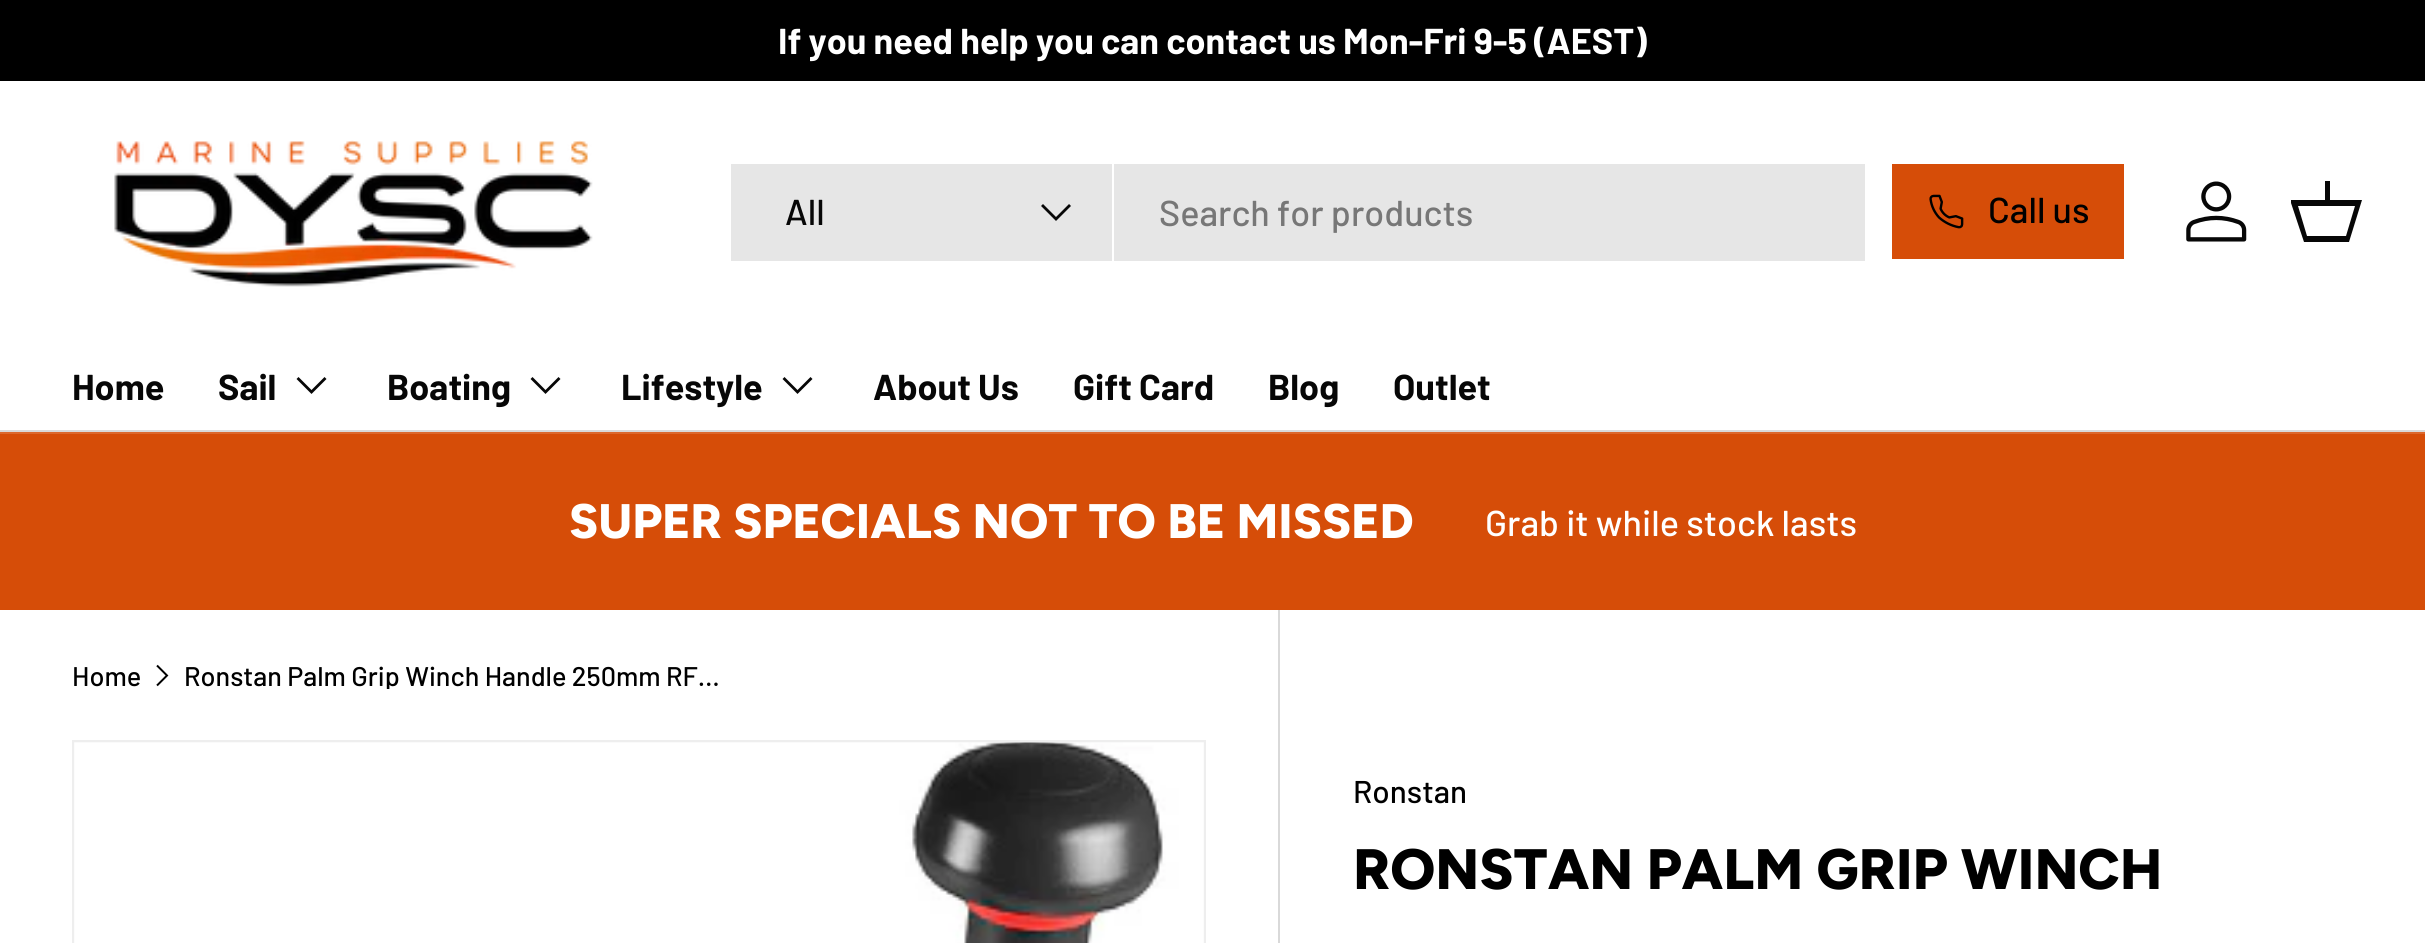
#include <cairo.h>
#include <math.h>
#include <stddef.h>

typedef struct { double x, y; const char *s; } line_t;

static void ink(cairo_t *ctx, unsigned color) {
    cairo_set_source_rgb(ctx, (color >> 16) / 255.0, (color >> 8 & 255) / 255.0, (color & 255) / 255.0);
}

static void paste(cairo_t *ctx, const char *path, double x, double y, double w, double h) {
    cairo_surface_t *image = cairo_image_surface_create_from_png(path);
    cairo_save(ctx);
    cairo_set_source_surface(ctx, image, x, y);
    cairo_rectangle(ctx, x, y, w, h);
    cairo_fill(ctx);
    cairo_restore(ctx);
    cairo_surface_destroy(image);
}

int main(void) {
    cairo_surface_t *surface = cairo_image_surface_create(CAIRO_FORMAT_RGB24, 2425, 943);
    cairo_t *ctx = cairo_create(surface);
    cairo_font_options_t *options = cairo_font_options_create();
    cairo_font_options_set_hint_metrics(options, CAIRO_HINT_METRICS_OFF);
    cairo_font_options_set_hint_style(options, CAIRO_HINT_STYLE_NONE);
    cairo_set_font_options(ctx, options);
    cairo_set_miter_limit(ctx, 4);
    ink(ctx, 0xFFFFFF);
    cairo_paint(ctx);
    ink(ctx, 0x000000);
    cairo_rectangle(ctx, 0, 0, 2425, 81);
    cairo_fill(ctx);
    cairo_select_font_face(ctx, "Barlow", CAIRO_FONT_SLANT_NORMAL, CAIRO_FONT_WEIGHT_BOLD);
    cairo_set_font_size(ctx, 36);
    ink(ctx, 0xFFFFFF);
    cairo_move_to(ctx, 778, 54);
    cairo_show_text(ctx, "If you need help you can contact us Mon-Fri 9-5 (AEST)");
    ink(ctx, 0xDADADA);
    cairo_rectangle(ctx, 0, 430, 2425, 2);
    cairo_fill(ctx);
    paste(ctx, "media/1.png", 114, 140, 479, 147);
    ink(ctx, 0xE6E6E6);
    cairo_rectangle(ctx, 731, 164, 1134, 97);
    cairo_fill(ctx);
    ink(ctx, 0xFFFFFF);
    cairo_rectangle(ctx, 1112, 164, 2, 97);
    cairo_fill(ctx);
    cairo_select_font_face(ctx, "Barlow Medium", CAIRO_FONT_SLANT_NORMAL, CAIRO_FONT_WEIGHT_NORMAL);
    ink(ctx, 0x070707);
    cairo_move_to(ctx, 785, 225);
    cairo_show_text(ctx, "All");
    cairo_new_path(ctx);
    cairo_move_to(ctx, 1070, 205);
    cairo_line_to(ctx, 1056, 219);
    cairo_line_to(ctx, 1042, 205);
    cairo_set_line_width(ctx, 2.8);
    cairo_stroke(ctx);
    ink(ctx, 0x777777);
    cairo_move_to(ctx, 1159, 226);
    cairo_show_text(ctx, "Search for products");
    ink(ctx, 0xD64D08);
    cairo_rectangle(ctx, 1892, 164, 232, 95);
    cairo_fill(ctx);
    paste(ctx, "media/2.png", 1929, 194, 35, 35);
    ink(ctx, 0x000000);
    cairo_move_to(ctx, 1988, 223);
    cairo_show_text(ctx, "Call us");
    paste(ctx, "media/3.png", 2186, 181, 61, 61);
    cairo_save(ctx);
    cairo_rectangle(ctx, 2291, 176, 72, 72);
    cairo_clip(ctx);
    ink(ctx, 0x070707);
    cairo_new_path(ctx);
    cairo_move_to(ctx, 2325, 200);
    cairo_line_to(ctx, 2325, 181);
    cairo_line_to(ctx, 2330, 181);
    cairo_line_to(ctx, 2330, 200);
    cairo_line_to(ctx, 2362, 200);
    cairo_line_to(ctx, 2349, 242);
    cairo_line_to(ctx, 2304, 242);
    cairo_line_to(ctx, 2290, 200);
    cairo_close_path(ctx);
    cairo_move_to(ctx, 2298, 206);
    cairo_line_to(ctx, 2307, 236);
    cairo_line_to(ctx, 2346, 236);
    cairo_line_to(ctx, 2355, 206);
    cairo_close_path(ctx);
    cairo_fill(ctx);
    cairo_restore(ctx);
    cairo_select_font_face(ctx, "Barlow", CAIRO_FONT_SLANT_NORMAL, CAIRO_FONT_WEIGHT_BOLD);
    ink(ctx, 0x070707);
    cairo_move_to(ctx, 72, 400);
    cairo_show_text(ctx, "Home");
    cairo_move_to(ctx, 218, 400);
    cairo_show_text(ctx, "Sail");
    cairo_new_path(ctx);
    cairo_move_to(ctx, 325.5, 378);
    cairo_line_to(ctx, 311.5, 392);
    cairo_line_to(ctx, 297.5, 378);
    cairo_stroke(ctx);
    cairo_move_to(ctx, 387, 400);
    cairo_show_text(ctx, "Boating");
    cairo_new_path(ctx);
    cairo_move_to(ctx, 559.5, 378);
    cairo_line_to(ctx, 545.5, 392);
    cairo_line_to(ctx, 531.5, 378);
    cairo_stroke(ctx);
    cairo_move_to(ctx, 621, 400);
    cairo_show_text(ctx, "Lifestyle");
    cairo_new_path(ctx);
    cairo_move_to(ctx, 811.5, 378);
    cairo_line_to(ctx, 797.5, 392);
    cairo_line_to(ctx, 783.5, 378);
    cairo_stroke(ctx);
    {
        static const line_t items[] = {
            {873, 400, "About Us"},
            {1073, 400, "Gift Card"},
            {1268, 400, "Blog"},
            {1393, 400, "Outlet"},
        };
        for (size_t i = 0; i < sizeof items / sizeof *items; i++) {
            cairo_move_to(ctx, items[i].x, items[i].y);
            cairo_show_text(ctx, items[i].s);
        }
    }
    ink(ctx, 0xD64D08);
    cairo_rectangle(ctx, 0, 434, 2425, 176);
    cairo_fill(ctx);
    ink(ctx, 0xDC682D);
    cairo_rectangle(ctx, 0, 432, 2425, 2);
    cairo_fill(ctx);
    cairo_select_font_face(ctx, "Figtree ExtraBold", CAIRO_FONT_SLANT_NORMAL, CAIRO_FONT_WEIGHT_NORMAL);
    cairo_set_font_size(ctx, 48.4);
    ink(ctx, 0xFFFFFF);
    cairo_move_to(ctx, 569, 538);
    cairo_show_text(ctx, "SUPER SPECIALS NOT TO BE MISSED");
    cairo_select_font_face(ctx, "Barlow Medium", CAIRO_FONT_SLANT_NORMAL, CAIRO_FONT_WEIGHT_NORMAL);
    cairo_set_font_size(ctx, 36);
    cairo_move_to(ctx, 1485, 536);
    cairo_show_text(ctx, "Grab it while stock lasts");
    cairo_set_font_size(ctx, 27);
    ink(ctx, 0x000000);
    cairo_move_to(ctx, 72, 686);
    cairo_show_text(ctx, "Home");
    cairo_new_path(ctx);
    cairo_move_to(ctx, 157, 665.5);
    cairo_line_to(ctx, 167, 675.5);
    cairo_line_to(ctx, 157, 685.5);
    cairo_set_line_width(ctx, 2);
    cairo_stroke(ctx);
    cairo_save(ctx);
    cairo_rectangle(ctx, 185, 662, 540, 27);
    cairo_clip(ctx);
    cairo_move_to(ctx, 184, 686);
    cairo_show_text(ctx, "Ronstan Palm Grip Winch Handle 250mm RF…");
    cairo_restore(ctx);
    ink(ctx, 0xF4F4F4);
    cairo_rectangle(ctx, 73, 741, 1132, 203);
    cairo_fill_preserve(ctx);
    ink(ctx, 0xEEEEEE);
    cairo_stroke(ctx);
    paste(ctx, "media/4.png", 74, 742, 1130, 201);
    ink(ctx, 0xD9D9D9);
    cairo_rectangle(ctx, 1278, 610, 2, 333);
    cairo_fill(ctx);
    cairo_set_font_size(ctx, 31.5);
    ink(ctx, 0x000000);
    cairo_move_to(ctx, 1353, 803);
    cairo_show_text(ctx, "Ronstan");
    cairo_select_font_face(ctx, "Figtree ExtraBold", CAIRO_FONT_SLANT_NORMAL, CAIRO_FONT_WEIGHT_NORMAL);
    cairo_set_font_size(ctx, 56.9);
    cairo_move_to(ctx, 1353, 889);
    cairo_show_text(ctx, "RONSTAN PALM GRIP WINCH");
    cairo_surface_write_to_png(surface, "image.png");
    cairo_font_options_destroy(options);
    cairo_destroy(ctx);
    cairo_surface_destroy(surface);
    return 0;
}
